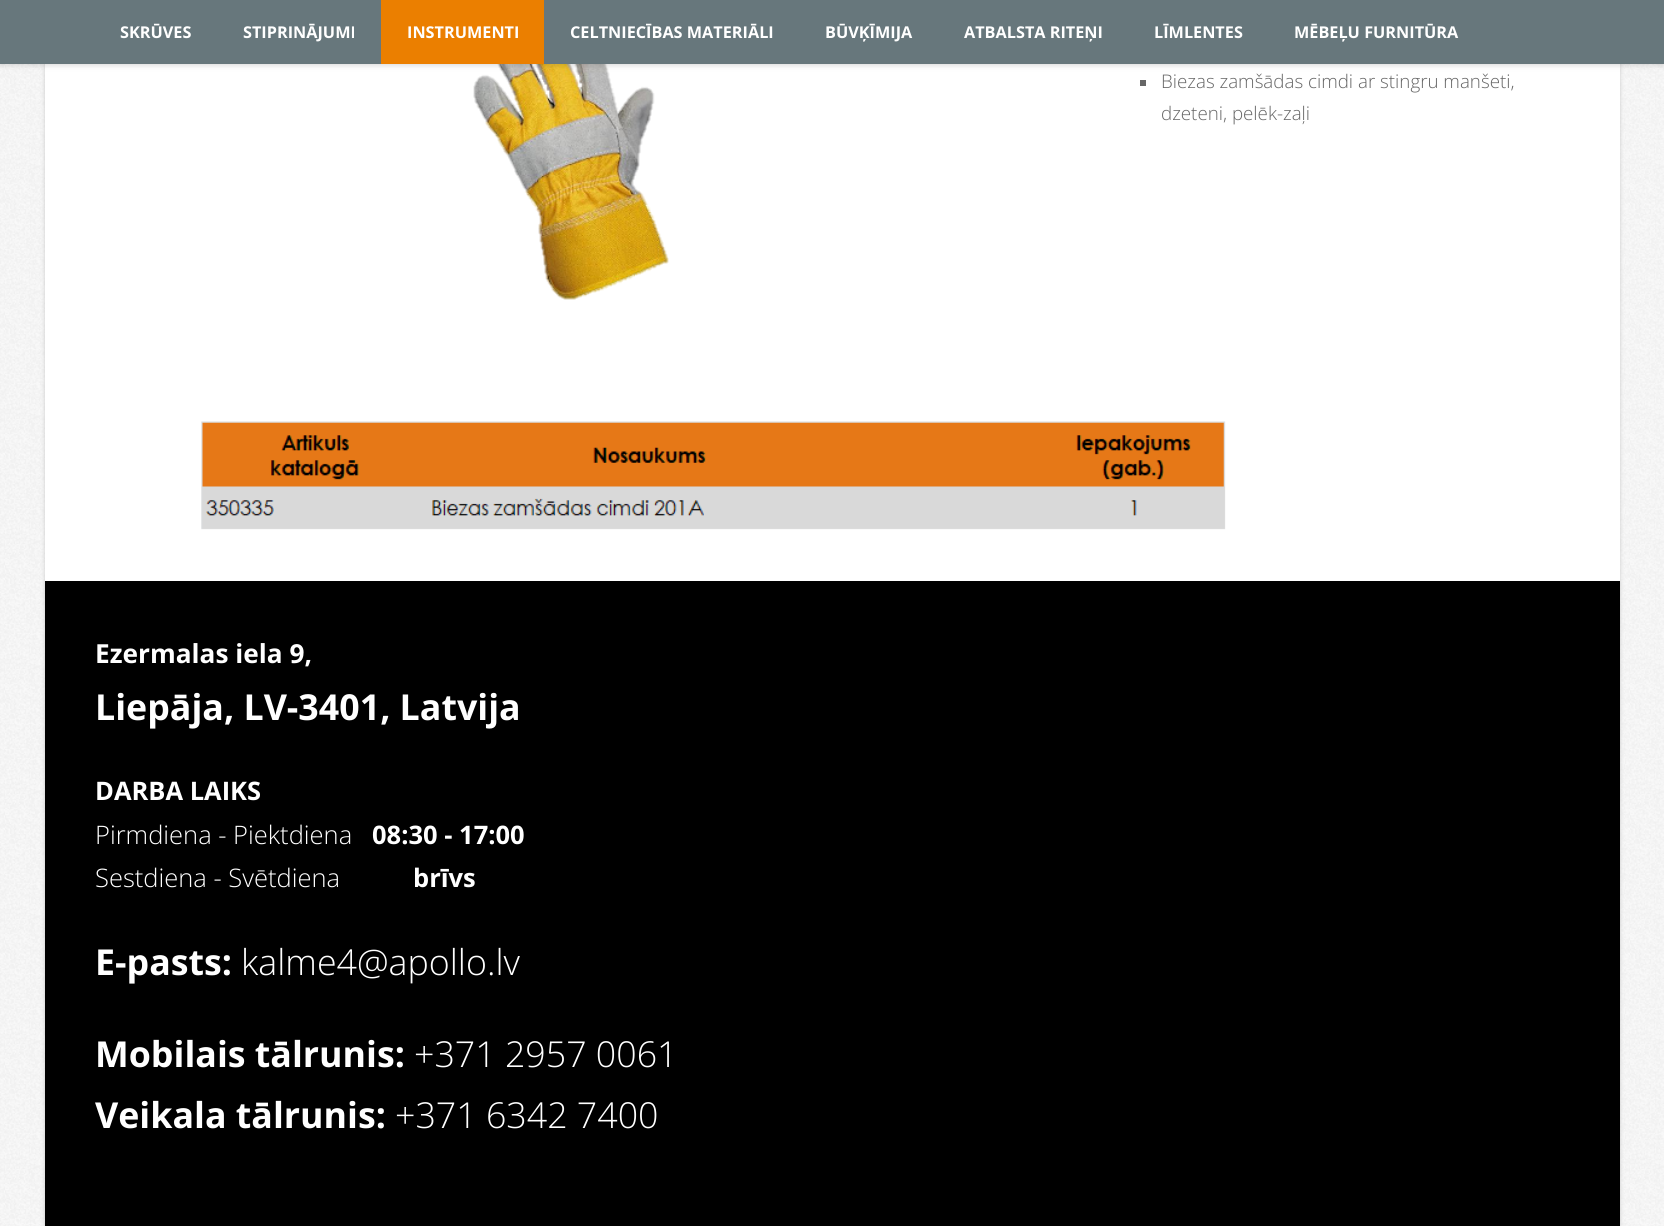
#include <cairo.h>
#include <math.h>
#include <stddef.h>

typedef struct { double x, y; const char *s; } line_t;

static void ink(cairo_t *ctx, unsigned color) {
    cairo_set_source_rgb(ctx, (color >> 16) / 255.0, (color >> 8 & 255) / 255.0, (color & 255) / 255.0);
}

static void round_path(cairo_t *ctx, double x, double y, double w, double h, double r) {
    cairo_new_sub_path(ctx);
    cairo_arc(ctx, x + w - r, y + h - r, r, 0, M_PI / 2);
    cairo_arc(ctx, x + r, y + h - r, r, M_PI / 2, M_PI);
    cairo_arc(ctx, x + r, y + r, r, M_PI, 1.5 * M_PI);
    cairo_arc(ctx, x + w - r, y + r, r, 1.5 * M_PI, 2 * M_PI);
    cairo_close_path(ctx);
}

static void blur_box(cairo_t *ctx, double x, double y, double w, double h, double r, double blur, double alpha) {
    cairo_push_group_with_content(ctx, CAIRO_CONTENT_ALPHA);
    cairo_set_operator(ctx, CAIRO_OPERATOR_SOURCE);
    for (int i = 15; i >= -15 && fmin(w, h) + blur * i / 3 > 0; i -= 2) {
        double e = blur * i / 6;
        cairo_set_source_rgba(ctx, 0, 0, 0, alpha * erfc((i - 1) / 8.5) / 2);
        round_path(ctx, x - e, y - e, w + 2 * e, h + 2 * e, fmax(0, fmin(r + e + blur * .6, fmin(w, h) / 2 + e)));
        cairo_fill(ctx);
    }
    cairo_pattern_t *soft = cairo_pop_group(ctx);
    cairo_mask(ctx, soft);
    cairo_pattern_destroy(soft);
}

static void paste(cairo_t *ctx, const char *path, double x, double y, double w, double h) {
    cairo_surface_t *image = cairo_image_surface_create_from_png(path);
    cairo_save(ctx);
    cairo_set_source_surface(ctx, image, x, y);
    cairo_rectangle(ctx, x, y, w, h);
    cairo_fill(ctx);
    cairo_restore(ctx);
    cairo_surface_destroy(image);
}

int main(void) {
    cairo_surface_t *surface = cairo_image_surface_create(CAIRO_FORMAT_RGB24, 1664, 1226);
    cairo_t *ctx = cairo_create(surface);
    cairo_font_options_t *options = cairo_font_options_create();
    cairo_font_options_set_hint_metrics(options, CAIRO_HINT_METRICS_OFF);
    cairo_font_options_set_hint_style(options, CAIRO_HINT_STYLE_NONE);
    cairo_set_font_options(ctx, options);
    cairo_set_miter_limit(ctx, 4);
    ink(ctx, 0xFFFFFF);
    cairo_paint(ctx);
    paste(ctx, "media/1.png", 0, 64, 1664, 1162);
    ink(ctx, 0xC9C9C9);
    blur_box(ctx, 45, -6, 1575, 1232, 0, 2, 1);
    ink(ctx, 0xFFFFFF);
    cairo_rectangle(ctx, 45, 64, 1575, 517);
    cairo_fill(ctx);
    paste(ctx, "media/2.png", 473, 64, 196, 236);
    ink(ctx, 0x000000);
    blur_box(ctx, 0, 1, 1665, 64, 0, 3, 0.17);
    ink(ctx, 0x67777C);
    cairo_rectangle(ctx, 0, 0, 1664, 64);
    cairo_fill(ctx);
    cairo_select_font_face(ctx, "Open Sans", CAIRO_FONT_SLANT_NORMAL, CAIRO_FONT_WEIGHT_BOLD);
    cairo_set_font_size(ctx, 16.25);
    ink(ctx, 0xFFFFFF);
    cairo_move_to(ctx, 120, 38);
    cairo_show_text(ctx, "SKRŪVES");
    cairo_move_to(ctx, 243, 38);
    cairo_show_text(ctx, "STIPRINĀJUMI");
    ink(ctx, 0xEB7F00);
    cairo_rectangle(ctx, 381, 0, 163, 64);
    cairo_fill(ctx);
    ink(ctx, 0xFFFFFF);
    {
        static const line_t items[] = {
            {407, 38, "INSTRUMENTI"},
            {570, 38, "CELTNIECĪBAS MATERIĀLI"},
            {825, 38, "BŪVĶĪMIJA"},
            {964, 38, "ATBALSTA RITEŅI"},
            {1154, 38, "LĪMLENTES"},
            {1294, 38, "MĒBEĻU FURNITŪRA"},
        };
        for (size_t i = 0; i < sizeof items / sizeof *items; i++) {
            cairo_move_to(ctx, items[i].x, items[i].y);
            cairo_show_text(ctx, items[i].s);
        }
    }
    ink(ctx, 0x666666);
    cairo_rectangle(ctx, 1140, 80, 6, 6);
    cairo_fill(ctx);
    cairo_select_font_face(ctx, "Open Sans Light", CAIRO_FONT_SLANT_NORMAL, CAIRO_FONT_WEIGHT_NORMAL);
    cairo_set_font_size(ctx, 18.75);
    cairo_move_to(ctx, 1161, 88);
    cairo_show_text(ctx, "Biezas zamšādas cimdi ar stingru manšeti,");
    cairo_move_to(ctx, 1161, 120);
    cairo_show_text(ctx, "dzeteni, pelēk-zaļi");
    paste(ctx, "media/3.png", 201, 421, 1025, 109);
    ink(ctx, 0x000000);
    cairo_rectangle(ctx, 45, 581, 1575, 645);
    cairo_fill(ctx);
    cairo_select_font_face(ctx, "Open Sans", CAIRO_FONT_SLANT_NORMAL, CAIRO_FONT_WEIGHT_BOLD);
    cairo_set_font_size(ctx, 26.25);
    ink(ctx, 0xFFFFFF);
    cairo_move_to(ctx, 95, 663);
    cairo_show_text(ctx, "Ezermalas iela 9,");
    cairo_set_font_size(ctx, 35.75);
    cairo_move_to(ctx, 95, 720);
    cairo_show_text(ctx, "Liepāja, LV-3401, Latvija");
    cairo_set_font_size(ctx, 25.5);
    cairo_move_to(ctx, 95, 800);
    cairo_show_text(ctx, "DARBA LAIKS");
    cairo_select_font_face(ctx, "Open Sans Light", CAIRO_FONT_SLANT_NORMAL, CAIRO_FONT_WEIGHT_NORMAL);
    cairo_move_to(ctx, 95, 844);
    cairo_show_text(ctx, "Pirmdiena - Piektdiena");
    cairo_select_font_face(ctx, "Open Sans", CAIRO_FONT_SLANT_NORMAL, CAIRO_FONT_WEIGHT_BOLD);
    cairo_move_to(ctx, 372, 844);
    cairo_show_text(ctx, "08:30 - 17:00");
    cairo_select_font_face(ctx, "Open Sans Light", CAIRO_FONT_SLANT_NORMAL, CAIRO_FONT_WEIGHT_NORMAL);
    cairo_move_to(ctx, 95, 887);
    cairo_show_text(ctx, "Sestdiena - Svētdiena");
    cairo_select_font_face(ctx, "Open Sans", CAIRO_FONT_SLANT_NORMAL, CAIRO_FONT_WEIGHT_BOLD);
    cairo_move_to(ctx, 413, 887);
    cairo_show_text(ctx, "brīvs");
    cairo_set_font_size(ctx, 35.75);
    cairo_move_to(ctx, 95, 975);
    cairo_show_text(ctx, "E-pasts:");
    cairo_select_font_face(ctx, "Open Sans Light", CAIRO_FONT_SLANT_NORMAL, CAIRO_FONT_WEIGHT_NORMAL);
    cairo_move_to(ctx, 241, 975);
    cairo_show_text(ctx, "kalme4@apollo.lv");
    cairo_select_font_face(ctx, "Open Sans", CAIRO_FONT_SLANT_NORMAL, CAIRO_FONT_WEIGHT_BOLD);
    cairo_move_to(ctx, 95, 1067);
    cairo_show_text(ctx, "Mobilais tālrunis:");
    cairo_select_font_face(ctx, "Open Sans Light", CAIRO_FONT_SLANT_NORMAL, CAIRO_FONT_WEIGHT_NORMAL);
    cairo_move_to(ctx, 414, 1067);
    cairo_show_text(ctx, "+371 2957 0061");
    cairo_select_font_face(ctx, "Open Sans", CAIRO_FONT_SLANT_NORMAL, CAIRO_FONT_WEIGHT_BOLD);
    cairo_move_to(ctx, 95, 1128);
    cairo_show_text(ctx, "Veikala tālrunis:");
    cairo_select_font_face(ctx, "Open Sans Light", CAIRO_FONT_SLANT_NORMAL, CAIRO_FONT_WEIGHT_NORMAL);
    cairo_move_to(ctx, 395, 1128);
    cairo_show_text(ctx, "+371 6342 7400");
    cairo_surface_write_to_png(surface, "image.png");
    cairo_font_options_destroy(options);
    cairo_destroy(ctx);
    cairo_surface_destroy(surface);
    return 0;
}
